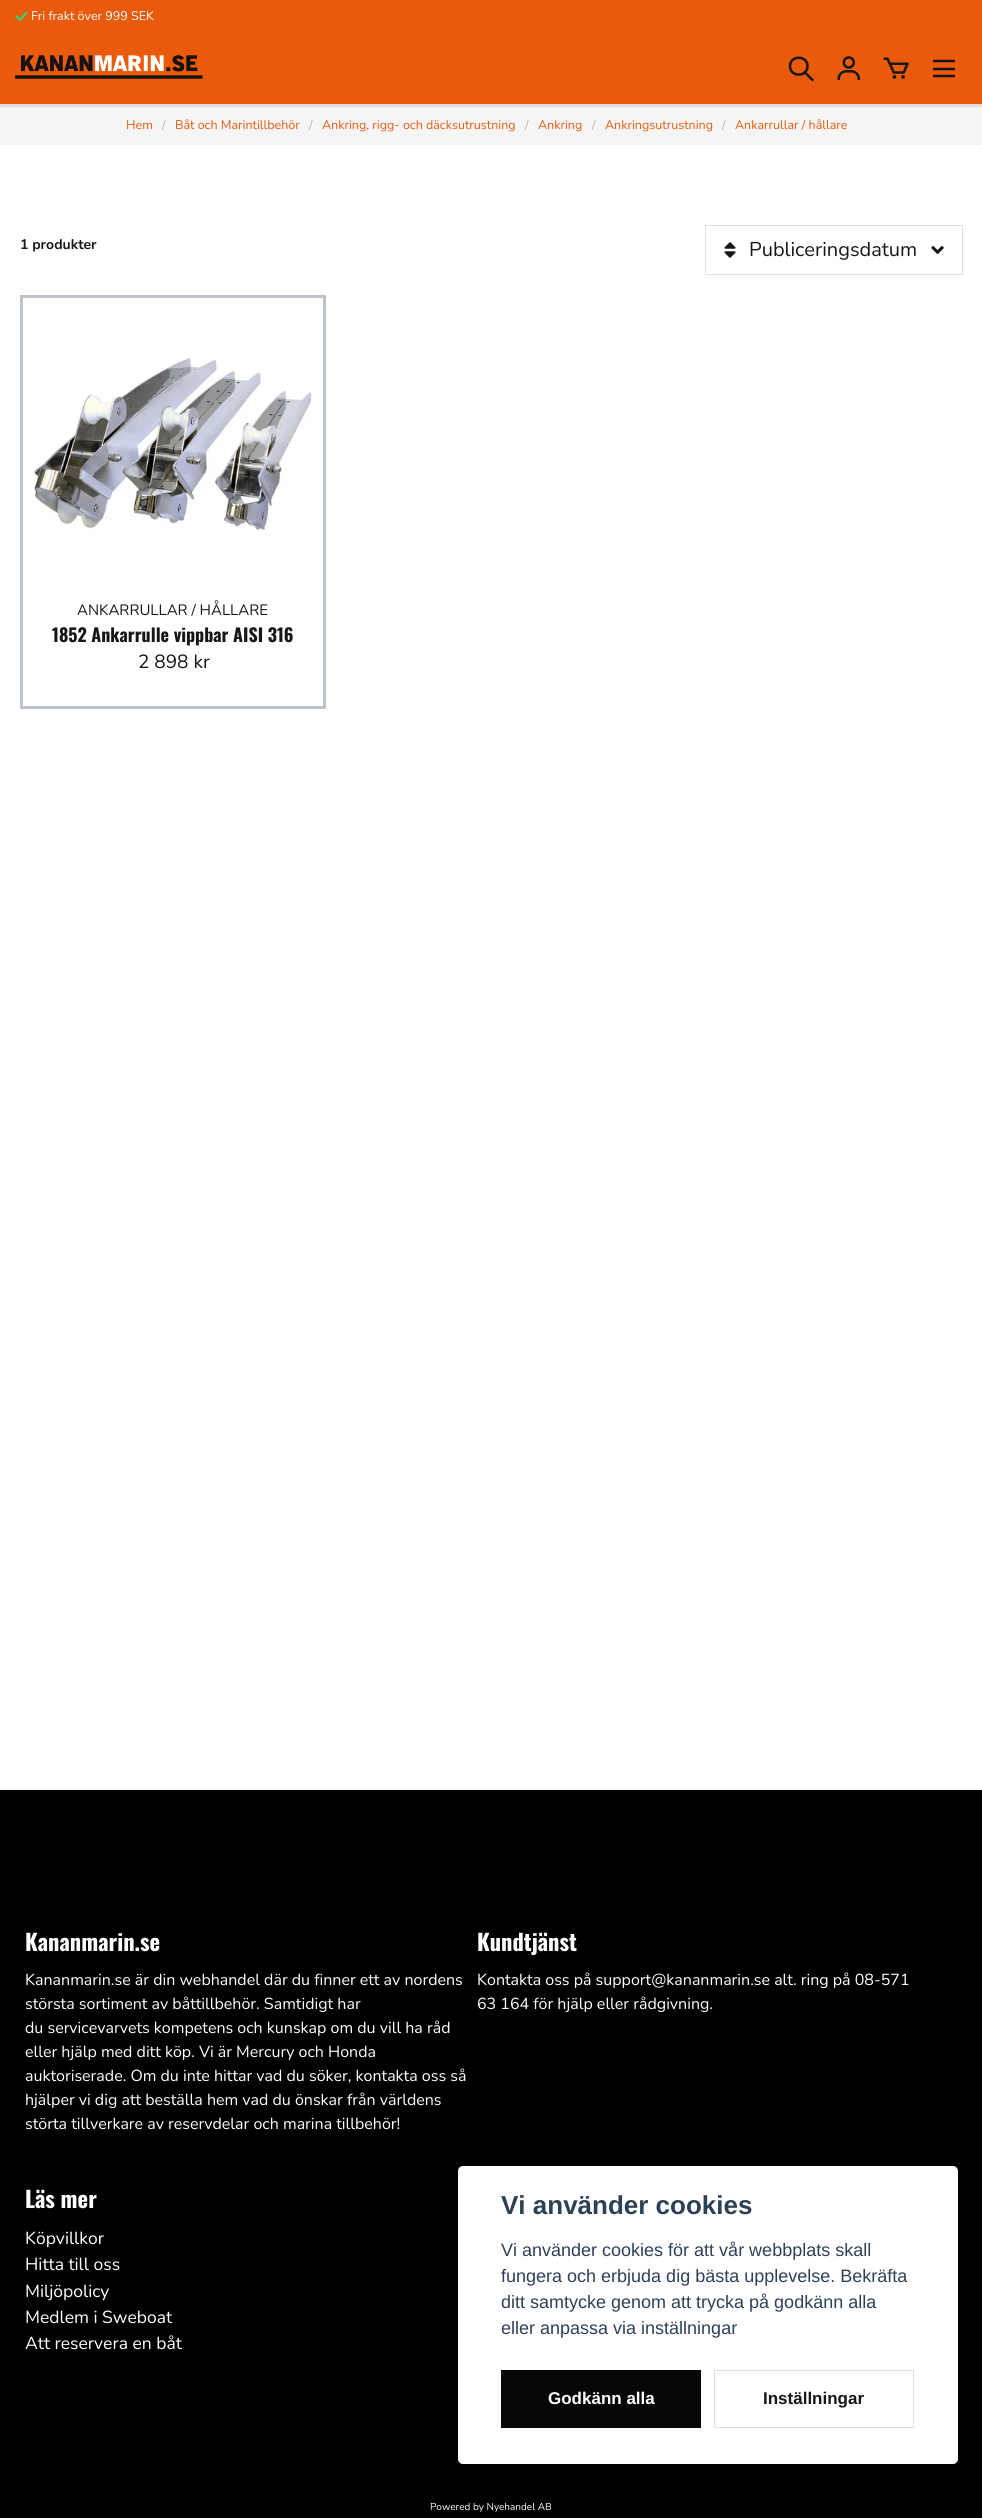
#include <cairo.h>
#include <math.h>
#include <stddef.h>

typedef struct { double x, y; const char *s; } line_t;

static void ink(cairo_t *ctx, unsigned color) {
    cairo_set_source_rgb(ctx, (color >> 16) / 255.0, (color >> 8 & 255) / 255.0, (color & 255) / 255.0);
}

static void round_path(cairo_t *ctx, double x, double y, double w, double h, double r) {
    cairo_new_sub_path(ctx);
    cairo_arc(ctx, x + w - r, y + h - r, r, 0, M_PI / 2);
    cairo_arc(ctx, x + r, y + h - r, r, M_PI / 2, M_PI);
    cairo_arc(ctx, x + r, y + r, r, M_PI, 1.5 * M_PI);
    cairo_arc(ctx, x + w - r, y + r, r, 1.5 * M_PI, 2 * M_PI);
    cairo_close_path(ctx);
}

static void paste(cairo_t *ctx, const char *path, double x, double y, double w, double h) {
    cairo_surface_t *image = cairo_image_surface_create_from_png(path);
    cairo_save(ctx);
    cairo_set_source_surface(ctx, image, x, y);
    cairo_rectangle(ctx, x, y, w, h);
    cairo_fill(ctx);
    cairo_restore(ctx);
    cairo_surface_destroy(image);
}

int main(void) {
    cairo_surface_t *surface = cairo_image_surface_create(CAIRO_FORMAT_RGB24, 982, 2518);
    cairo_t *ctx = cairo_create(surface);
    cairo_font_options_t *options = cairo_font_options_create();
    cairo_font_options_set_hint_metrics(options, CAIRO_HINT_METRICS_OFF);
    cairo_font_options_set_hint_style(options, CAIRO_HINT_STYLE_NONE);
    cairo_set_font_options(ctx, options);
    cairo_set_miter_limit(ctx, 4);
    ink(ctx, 0xFFFFFF);
    cairo_paint(ctx);
    ink(ctx, 0xEA5A0D);
    cairo_rectangle(ctx, 0, 0, 982, 104);
    cairo_fill(ctx);
    ink(ctx, 0xDFDFDF);
    cairo_rectangle(ctx, 0, 104, 982, 3);
    cairo_fill(ctx);
    paste(ctx, "media/1.png", 15, 11, 13, 11);
    cairo_select_font_face(ctx, "Nunito", CAIRO_FONT_SLANT_NORMAL, CAIRO_FONT_WEIGHT_NORMAL);
    cairo_set_font_size(ctx, 12.5);
    ink(ctx, 0xFFFFFF);
    cairo_move_to(ctx, 31, 20);
    cairo_show_text(ctx, "Fri frakt över 999 SEK");
    paste(ctx, "media/2.png", 15, 55, 188, 24);
    cairo_new_path(ctx);
    cairo_move_to(ctx, 812.5, 80);
    cairo_line_to(ctx, 805, 72.5);
    cairo_move_to(ctx, 807.5, 66);
    cairo_curve_to(ctx, 807.5, 77.5, 790, 77.5, 790, 66);
    cairo_curve_to(ctx, 790, 55, 807.5, 55, 807.5, 66);
    cairo_close_path(ctx);
    ink(ctx, 0x171717);
    cairo_set_line_width(ctx, 2.5);
    cairo_set_line_cap(ctx, CAIRO_LINE_CAP_ROUND);
    cairo_set_line_join(ctx, CAIRO_LINE_JOIN_ROUND);
    cairo_stroke(ctx);
    paste(ctx, "media/3.png", 837, 56, 23, 24);
    paste(ctx, "media/4.png", 883, 57, 26, 22);
    cairo_new_path(ctx);
    cairo_move_to(ctx, 934, 61);
    cairo_line_to(ctx, 954, 61);
    cairo_move_to(ctx, 934, 69);
    cairo_line_to(ctx, 954, 69);
    cairo_move_to(ctx, 934, 76);
    cairo_line_to(ctx, 954, 76);
    cairo_stroke(ctx);
    ink(ctx, 0xF5F5F5);
    cairo_rectangle(ctx, 0, 107, 982, 38);
    cairo_fill(ctx);
    ink(ctx, 0xEA5A0D);
    cairo_move_to(ctx, 126, 129);
    cairo_show_text(ctx, "Hem");
    ink(ctx, 0xB5B5B5);
    cairo_move_to(ctx, 162, 129);
    cairo_show_text(ctx, "/");
    ink(ctx, 0xEA5A0D);
    cairo_move_to(ctx, 175, 129);
    cairo_show_text(ctx, "Båt och Marintillbehör");
    ink(ctx, 0xB5B5B5);
    cairo_move_to(ctx, 309, 129);
    cairo_show_text(ctx, "/");
    ink(ctx, 0xEA5A0D);
    cairo_move_to(ctx, 322, 129);
    cairo_show_text(ctx, "Ankring, rigg- och däcksutrustning");
    ink(ctx, 0xB5B5B5);
    cairo_move_to(ctx, 525, 129);
    cairo_show_text(ctx, "/");
    ink(ctx, 0xEA5A0D);
    cairo_move_to(ctx, 538, 129);
    cairo_show_text(ctx, "Ankring");
    ink(ctx, 0xB5B5B5);
    cairo_move_to(ctx, 592, 129);
    cairo_show_text(ctx, "/");
    ink(ctx, 0xEA5A0D);
    cairo_move_to(ctx, 605, 129);
    cairo_show_text(ctx, "Ankringsutrustning");
    ink(ctx, 0xB5B5B5);
    cairo_move_to(ctx, 722, 129);
    cairo_show_text(ctx, "/");
    ink(ctx, 0xEA5A0D);
    cairo_move_to(ctx, 735, 129);
    cairo_show_text(ctx, "Ankarrullar / hållare");
    cairo_select_font_face(ctx, "Nunito", CAIRO_FONT_SLANT_NORMAL, CAIRO_FONT_WEIGHT_BOLD);
    cairo_set_font_size(ctx, 14);
    ink(ctx, 0x171717);
    cairo_move_to(ctx, 20, 249);
    cairo_show_text(ctx, "1 produkter");
    cairo_rectangle(ctx, 705.5, 225.5, 257, 49);
    ink(ctx, 0xDFDFDF);
    cairo_set_line_width(ctx, 1);
    cairo_set_line_cap(ctx, CAIRO_LINE_CAP_BUTT);
    cairo_set_line_join(ctx, CAIRO_LINE_JOIN_MITER);
    cairo_stroke(ctx);
    paste(ctx, "media/5.png", 724, 242, 12, 16);
    cairo_select_font_face(ctx, "Nunito", CAIRO_FONT_SLANT_NORMAL, CAIRO_FONT_WEIGHT_NORMAL);
    cairo_set_font_size(ctx, 20);
    ink(ctx, 0x171717);
    cairo_move_to(ctx, 749, 256);
    cairo_show_text(ctx, "Publiceringsdatum");
    paste(ctx, "media/6.png", 931, 246, 13, 8);
    cairo_rectangle(ctx, 21.5, 296.5, 303, 411);
    ink(ctx, 0xBDC3C8);
    cairo_set_line_width(ctx, 3);
    cairo_stroke(ctx);
    paste(ctx, "media/7.png", 33, 358, 280, 172);
    cairo_set_font_size(ctx, 15);
    ink(ctx, 0x171717);
    cairo_move_to(ctx, 77, 615);
    cairo_show_text(ctx, "ANKARRULLAR / HÅLLARE");
    cairo_select_font_face(ctx, "Oswald", CAIRO_FONT_SLANT_NORMAL, CAIRO_FONT_WEIGHT_BOLD);
    cairo_set_font_size(ctx, 18);
    cairo_move_to(ctx, 52, 642);
    cairo_show_text(ctx, "1852 Ankarrulle vippbar AISI 316");
    cairo_select_font_face(ctx, "Nunito", CAIRO_FONT_SLANT_NORMAL, CAIRO_FONT_WEIGHT_NORMAL);
    cairo_set_font_size(ctx, 19);
    cairo_move_to(ctx, 138, 668);
    cairo_show_text(ctx, "2 898 kr");
    ink(ctx, 0x000000);
    cairo_rectangle(ctx, 0, 1790, 982, 728);
    cairo_fill(ctx);
    cairo_select_font_face(ctx, "Oswald", CAIRO_FONT_SLANT_NORMAL, CAIRO_FONT_WEIGHT_BOLD);
    cairo_set_font_size(ctx, 22.5);
    ink(ctx, 0xFFFFFF);
    cairo_move_to(ctx, 25, 1951);
    cairo_show_text(ctx, "Kananmarin.se");
    cairo_select_font_face(ctx, "Nunito", CAIRO_FONT_SLANT_NORMAL, CAIRO_FONT_WEIGHT_NORMAL);
    cairo_set_font_size(ctx, 16);
    {
        static const line_t items[] = {
            {25, 1985, "Kananmarin.se är din webhandel där du finner ett av nordens"},
            {25, 2009, "största sortiment av båttillbehör. Samtidigt har"},
            {25, 2033, "du servicevarvets kompetens och kunskap om du vill ha råd"},
            {25, 2057, "eller hjälp med ditt köp. Vi är Mercury och Honda"},
            {25, 2081, "auktoriserade. Om du inte hittar vad du söker, kontakta oss så"},
            {25, 2105, "hjälper vi dig att beställa hem vad du önskar från världens"},
            {25, 2129, "störta tillverkare av reservdelar och marina tillbehör!"},
        };
        for (size_t i = 0; i < sizeof items / sizeof *items; i++) {
            cairo_move_to(ctx, items[i].x, items[i].y);
            cairo_show_text(ctx, items[i].s);
        }
    }
    cairo_select_font_face(ctx, "Oswald", CAIRO_FONT_SLANT_NORMAL, CAIRO_FONT_WEIGHT_BOLD);
    cairo_set_font_size(ctx, 22.5);
    cairo_move_to(ctx, 477, 1951);
    cairo_show_text(ctx, "Kundtjänst");
    cairo_select_font_face(ctx, "Nunito", CAIRO_FONT_SLANT_NORMAL, CAIRO_FONT_WEIGHT_NORMAL);
    cairo_set_font_size(ctx, 16);
    cairo_move_to(ctx, 477, 1985);
    cairo_show_text(ctx, "Kontakta oss på support@kananmarin.se alt. ring på 08-571");
    cairo_move_to(ctx, 477, 2009);
    cairo_show_text(ctx, "63 164 för hjälp eller rådgivning.");
    cairo_select_font_face(ctx, "Oswald", CAIRO_FONT_SLANT_NORMAL, CAIRO_FONT_WEIGHT_BOLD);
    cairo_set_font_size(ctx, 22.5);
    cairo_move_to(ctx, 25, 2208);
    cairo_show_text(ctx, "Läs mer");
    cairo_select_font_face(ctx, "Nunito", CAIRO_FONT_SLANT_NORMAL, CAIRO_FONT_WEIGHT_NORMAL);
    cairo_set_font_size(ctx, 17.5);
    {
        static const line_t items[] = {
            {25, 2244, "Köpvillkor"},
            {25, 2270, "Hitta till oss"},
            {25, 2297, "Miljöpolicy"},
            {25, 2323, "Medlem i Sweboat"},
            {25, 2349, "Att reservera en båt"},
        };
        for (size_t i = 0; i < sizeof items / sizeof *items; i++) {
            cairo_move_to(ctx, items[i].x, items[i].y);
            cairo_show_text(ctx, items[i].s);
        }
    }
    cairo_set_font_size(ctx, 10);
    cairo_move_to(ctx, 430, 2510);
    cairo_show_text(ctx, "Powered by Nyehandel AB");
    round_path(ctx, 458, 2166, 500, 298, 5);
    cairo_fill(ctx);
    cairo_select_font_face(ctx, "Liberation Sans", CAIRO_FONT_SLANT_NORMAL, CAIRO_FONT_WEIGHT_BOLD);
    cairo_set_font_size(ctx, 26);
    ink(ctx, 0x2D4156);
    cairo_move_to(ctx, 501, 2214);
    cairo_show_text(ctx, "Vi använder cookies");
    cairo_select_font_face(ctx, "Liberation Sans", CAIRO_FONT_SLANT_NORMAL, CAIRO_FONT_WEIGHT_NORMAL);
    cairo_set_font_size(ctx, 18);
    {
        static const line_t items[] = {
            {501, 2256, "Vi använder cookies för att vår webbplats skall"},
            {501, 2282, "fungera och erbjuda dig bästa upplevelse. Bekräfta"},
            {501, 2308, "ditt samtycke genom att trycka på godkänn alla"},
            {501, 2334, "eller anpassa via inställningar"},
        };
        for (size_t i = 0; i < sizeof items / sizeof *items; i++) {
            cairo_move_to(ctx, items[i].x, items[i].y);
            cairo_show_text(ctx, items[i].s);
        }
    }
    ink(ctx, 0x070707);
    cairo_rectangle(ctx, 501, 2370, 200, 58);
    cairo_fill(ctx);
    cairo_select_font_face(ctx, "Liberation Sans", CAIRO_FONT_SLANT_NORMAL, CAIRO_FONT_WEIGHT_BOLD);
    cairo_set_font_size(ctx, 17);
    ink(ctx, 0xFFFFFF);
    cairo_move_to(ctx, 548, 2404);
    cairo_show_text(ctx, "Godkänn alla");
    cairo_rectangle(ctx, 714.5, 2370.5, 199, 57);
    ink(ctx, 0xDFDFDF);
    cairo_set_line_width(ctx, 1);
    cairo_stroke(ctx);
    ink(ctx, 0x171717);
    cairo_move_to(ctx, 763, 2404);
    cairo_show_text(ctx, "Inställningar");
    cairo_surface_write_to_png(surface, "image.png");
    cairo_font_options_destroy(options);
    cairo_destroy(ctx);
    cairo_surface_destroy(surface);
    return 0;
}
